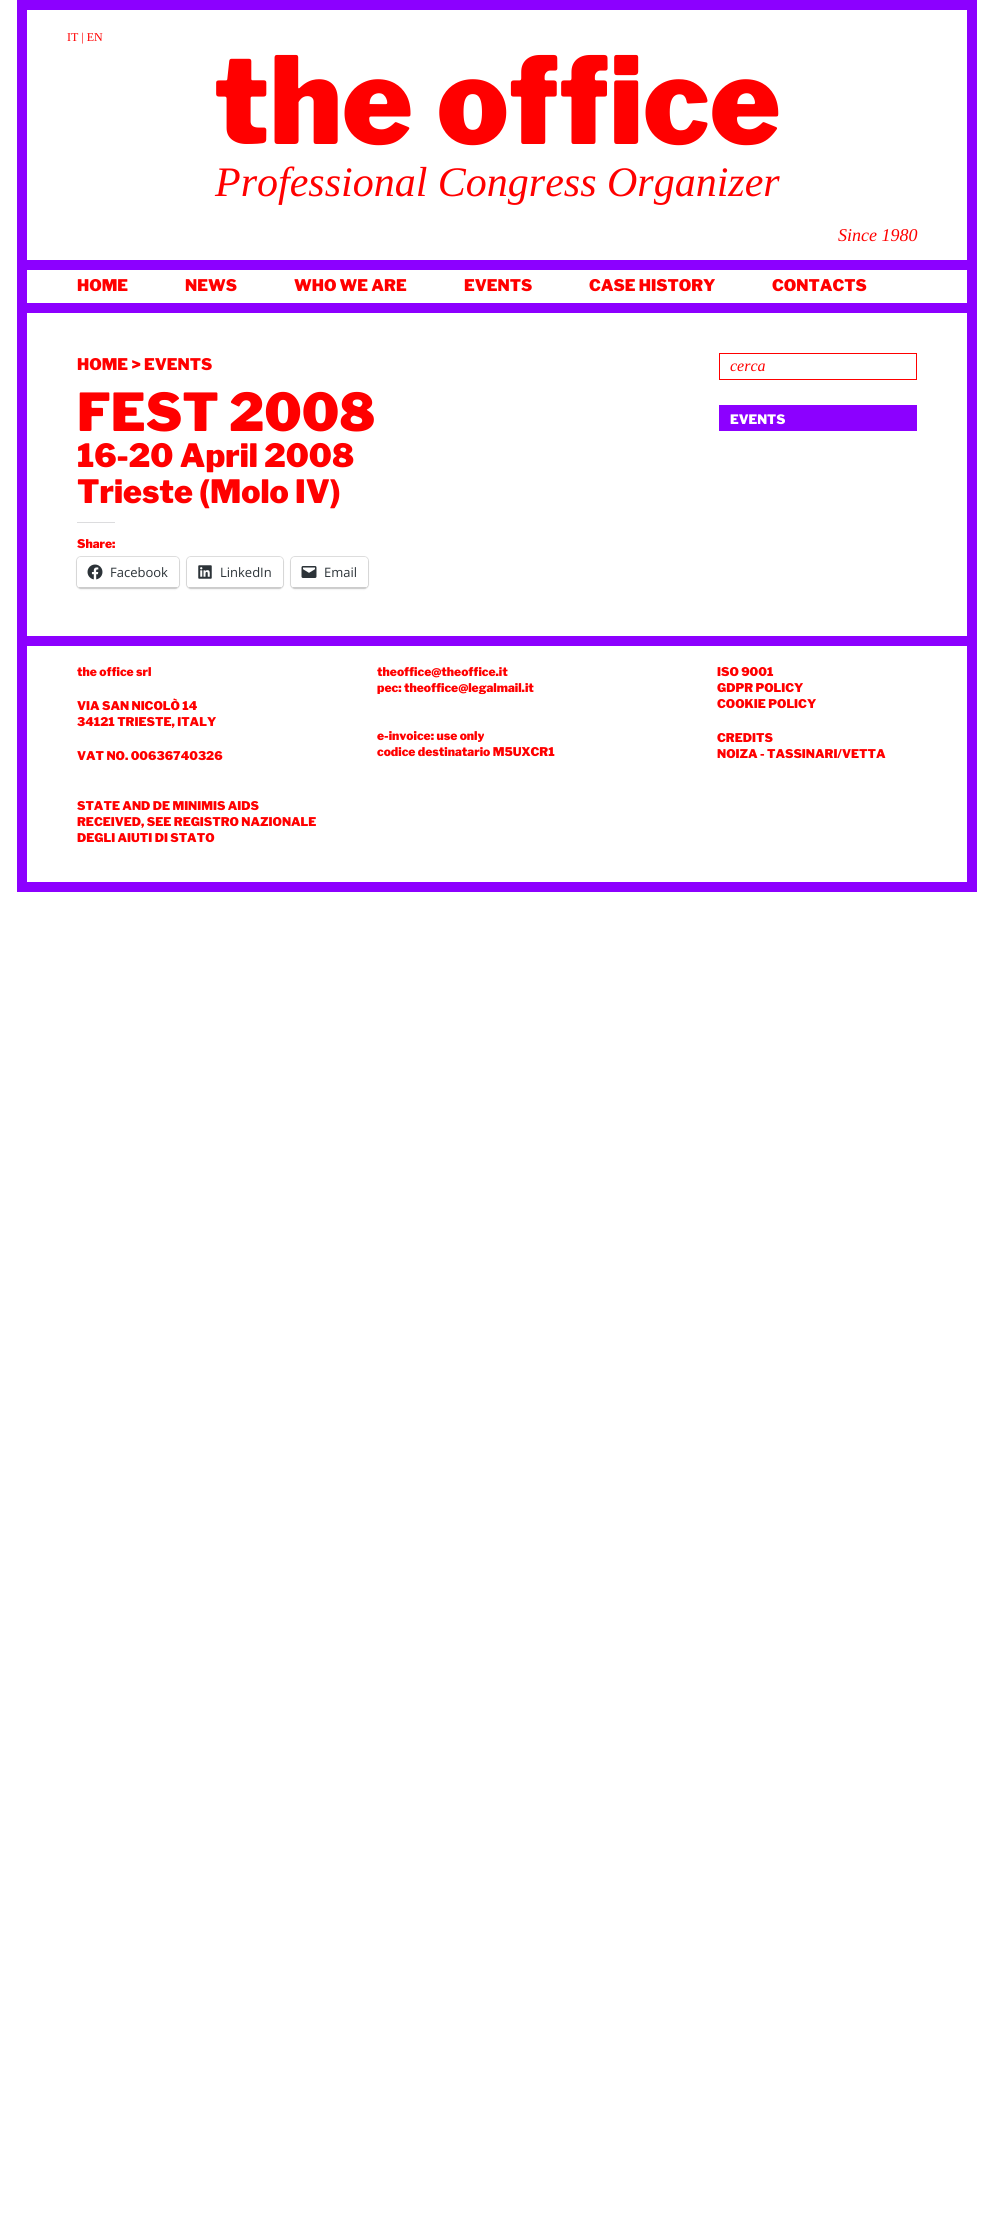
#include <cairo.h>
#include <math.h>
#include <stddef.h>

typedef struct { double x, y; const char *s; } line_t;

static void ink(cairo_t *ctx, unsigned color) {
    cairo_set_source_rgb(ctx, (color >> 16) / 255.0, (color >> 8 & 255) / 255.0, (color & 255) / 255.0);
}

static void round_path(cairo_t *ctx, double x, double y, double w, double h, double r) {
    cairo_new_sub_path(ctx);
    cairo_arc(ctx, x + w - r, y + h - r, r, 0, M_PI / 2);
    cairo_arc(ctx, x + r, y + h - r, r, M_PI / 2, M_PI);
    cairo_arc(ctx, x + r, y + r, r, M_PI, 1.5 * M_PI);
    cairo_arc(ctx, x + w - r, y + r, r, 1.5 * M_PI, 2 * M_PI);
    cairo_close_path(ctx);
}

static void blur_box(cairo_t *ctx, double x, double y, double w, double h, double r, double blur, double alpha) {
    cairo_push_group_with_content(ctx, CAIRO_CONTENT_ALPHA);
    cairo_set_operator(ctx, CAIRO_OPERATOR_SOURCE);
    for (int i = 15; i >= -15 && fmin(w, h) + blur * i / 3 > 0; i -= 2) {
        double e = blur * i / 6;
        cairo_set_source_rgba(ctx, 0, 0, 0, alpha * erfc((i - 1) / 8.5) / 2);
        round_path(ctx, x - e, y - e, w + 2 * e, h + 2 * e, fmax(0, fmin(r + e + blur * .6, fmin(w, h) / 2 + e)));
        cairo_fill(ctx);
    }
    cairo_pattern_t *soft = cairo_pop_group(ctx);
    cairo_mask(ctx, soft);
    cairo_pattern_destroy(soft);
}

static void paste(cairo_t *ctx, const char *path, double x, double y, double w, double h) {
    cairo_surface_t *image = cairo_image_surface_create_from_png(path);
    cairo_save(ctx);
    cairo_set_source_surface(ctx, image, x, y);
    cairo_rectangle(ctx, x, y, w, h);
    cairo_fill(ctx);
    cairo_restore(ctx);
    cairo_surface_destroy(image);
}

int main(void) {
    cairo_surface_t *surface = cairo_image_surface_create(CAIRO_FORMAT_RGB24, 994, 2219);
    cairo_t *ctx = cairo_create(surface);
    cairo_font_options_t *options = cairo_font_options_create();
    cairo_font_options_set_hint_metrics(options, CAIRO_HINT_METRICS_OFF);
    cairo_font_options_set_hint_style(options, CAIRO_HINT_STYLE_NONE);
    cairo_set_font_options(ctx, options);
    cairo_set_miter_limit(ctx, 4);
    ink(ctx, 0xFFFFFF);
    cairo_paint(ctx);
    ink(ctx, 0x8C00FF);
    cairo_rectangle(ctx, 17, 0, 960, 892);
    cairo_fill(ctx);
    ink(ctx, 0xFFFFFF);
    cairo_rectangle(ctx, 27, 10, 940, 250);
    cairo_fill(ctx);
    cairo_select_font_face(ctx, "Liberation Serif", CAIRO_FONT_SLANT_NORMAL, CAIRO_FONT_WEIGHT_NORMAL);
    cairo_set_font_size(ctx, 12);
    ink(ctx, 0xFF0000);
    cairo_move_to(ctx, 67, 41);
    cairo_show_text(ctx, "IT | EN");
    cairo_select_font_face(ctx, "Libre Franklin Thin", CAIRO_FONT_SLANT_NORMAL, CAIRO_FONT_WEIGHT_NORMAL);
    cairo_set_font_size(ctx, 120);
    cairo_move_to(ctx, 214, 144);
    cairo_show_text(ctx, "the office");
    cairo_select_font_face(ctx, "Liberation Serif", CAIRO_FONT_SLANT_ITALIC, CAIRO_FONT_WEIGHT_NORMAL);
    cairo_set_font_size(ctx, 42);
    cairo_move_to(ctx, 215, 196);
    cairo_show_text(ctx, "Professional Congress Organizer");
    cairo_set_font_size(ctx, 18);
    cairo_move_to(ctx, 838, 241);
    cairo_show_text(ctx, "Since 1980");
    ink(ctx, 0xFFFFFF);
    cairo_rectangle(ctx, 27, 270, 940, 33);
    cairo_fill(ctx);
    cairo_select_font_face(ctx, "Libre Franklin Thin", CAIRO_FONT_SLANT_NORMAL, CAIRO_FONT_WEIGHT_NORMAL);
    cairo_set_font_size(ctx, 16);
    ink(ctx, 0xFF0000);
    {
        static const line_t items[] = {
            {77, 291, "HOME"},
            {185, 291, "NEWS"},
            {294, 291, "WHO WE ARE"},
            {464, 291, "EVENTS"},
            {589, 291, "CASE HISTORY"},
            {772, 291, "CONTACTS"},
        };
        for (size_t i = 0; i < sizeof items / sizeof *items; i++) {
            cairo_move_to(ctx, items[i].x, items[i].y);
            cairo_show_text(ctx, items[i].s);
        }
    }
    ink(ctx, 0xFFFFFF);
    cairo_rectangle(ctx, 27, 313, 940, 323);
    cairo_fill(ctx);
    ink(ctx, 0xFF0000);
    cairo_move_to(ctx, 77, 370);
    cairo_show_text(ctx, "HOME > EVENTS");
    cairo_set_font_size(ctx, 52);
    cairo_move_to(ctx, 77, 431);
    cairo_show_text(ctx, "FEST 2008");
    cairo_set_font_size(ctx, 32);
    cairo_move_to(ctx, 77, 467);
    cairo_show_text(ctx, "16-20 April 2008");
    cairo_move_to(ctx, 77, 503);
    cairo_show_text(ctx, "Trieste (Molo IV)");
    ink(ctx, 0xDCDCDE);
    cairo_rectangle(ctx, 77, 522, 38, 1);
    cairo_fill(ctx);
    cairo_set_font_size(ctx, 12);
    ink(ctx, 0xFF0000);
    cairo_move_to(ctx, 77, 548);
    cairo_show_text(ctx, "Share:");
    round_path(ctx, 76.5, 556.5, 103, 32, 4.5);
    ink(ctx, 0xE0E0E0);
    cairo_set_line_width(ctx, 1);
    cairo_stroke(ctx);
    ink(ctx, 0x000000);
    blur_box(ctx, 77, 558, 102, 31, 4, 1, 0.12);
    ink(ctx, 0xFFFFFF);
    round_path(ctx, 77, 557, 102, 31, 4);
    cairo_fill(ctx);
    ink(ctx, 0xCCCCCC);
    cairo_rectangle(ctx, 79, 587, 98, 1);
    cairo_fill(ctx);
    paste(ctx, "media/1.png", 87, 564, 16, 16);
    cairo_select_font_face(ctx, "Open Sans", CAIRO_FONT_SLANT_NORMAL, CAIRO_FONT_WEIGHT_NORMAL);
    cairo_set_font_size(ctx, 13);
    ink(ctx, 0x2C3338);
    cairo_move_to(ctx, 110, 577);
    cairo_show_text(ctx, "Facebook");
    round_path(ctx, 186.5, 556.5, 97, 32, 4.5);
    ink(ctx, 0xE0E0E0);
    cairo_stroke(ctx);
    ink(ctx, 0x000000);
    blur_box(ctx, 187, 558, 96, 31, 4, 1, 0.12);
    ink(ctx, 0xFFFFFF);
    round_path(ctx, 187, 557, 96, 31, 4);
    cairo_fill(ctx);
    ink(ctx, 0xCCCCCC);
    cairo_rectangle(ctx, 189, 587, 92, 1);
    cairo_fill(ctx);
    paste(ctx, "media/2.png", 198, 565, 14, 14);
    ink(ctx, 0x2C3338);
    cairo_move_to(ctx, 220, 577);
    cairo_show_text(ctx, "LinkedIn");
    round_path(ctx, 290.5, 556.5, 78, 32, 4.5);
    ink(ctx, 0xE0E0E0);
    cairo_stroke(ctx);
    ink(ctx, 0x000000);
    blur_box(ctx, 291, 558, 77, 31, 4, 1, 0.12);
    ink(ctx, 0xFFFFFF);
    round_path(ctx, 291, 557, 77, 31, 4);
    cairo_fill(ctx);
    ink(ctx, 0xCCCCCC);
    cairo_rectangle(ctx, 293, 587, 73, 1);
    cairo_fill(ctx);
    paste(ctx, "media/3.png", 301, 566, 16, 12);
    ink(ctx, 0x2C3338);
    cairo_move_to(ctx, 324, 577);
    cairo_show_text(ctx, "Email");
    cairo_rectangle(ctx, 719.5, 353.5, 197, 26);
    ink(ctx, 0xFF0000);
    cairo_stroke(ctx);
    cairo_select_font_face(ctx, "Liberation Serif", CAIRO_FONT_SLANT_ITALIC, CAIRO_FONT_WEIGHT_NORMAL);
    cairo_set_font_size(ctx, 16);
    cairo_move_to(ctx, 730, 371);
    cairo_show_text(ctx, "cerca");
    ink(ctx, 0x8C00FF);
    cairo_rectangle(ctx, 719, 405, 198, 26);
    cairo_fill(ctx);
    cairo_select_font_face(ctx, "Libre Franklin Thin", CAIRO_FONT_SLANT_NORMAL, CAIRO_FONT_WEIGHT_NORMAL);
    cairo_set_font_size(ctx, 13);
    ink(ctx, 0xFFFFFF);
    cairo_move_to(ctx, 730, 424);
    cairo_show_text(ctx, "EVENTS");
    cairo_rectangle(ctx, 27, 646, 940, 236);
    cairo_fill(ctx);
    cairo_set_font_size(ctx, 12);
    ink(ctx, 0xFF0000);
    {
        static const line_t items[] = {
            {77, 676, "the office srl"},
            {77, 710, "VIA SAN NICOLÒ 14"},
            {77, 726, "34121 TRIESTE, ITALY"},
            {77, 760, "VAT NO. 00636740326"},
            {77, 810, "STATE AND DE MINIMIS AIDS"},
            {77, 826, "RECEIVED, SEE REGISTRO NAZIONALE"},
            {77, 842, "DEGLI AIUTI DI STATO"},
            {377, 676, "theoffice@theoffice.it"},
            {377, 692, "pec: theoffice@legalmail.it"},
            {377, 740, "e-invoice: use only"},
            {377, 756, "codice destinatario M5UXCR1"},
            {717, 676, "ISO 9001"},
            {717, 692, "GDPR POLICY"},
            {717, 708, "COOKIE POLICY"},
            {717, 742, "CREDITS"},
            {717, 758, "NOIZA - TASSINARI/VETTA"},
        };
        for (size_t i = 0; i < sizeof items / sizeof *items; i++) {
            cairo_move_to(ctx, items[i].x, items[i].y);
            cairo_show_text(ctx, items[i].s);
        }
    }
    cairo_surface_write_to_png(surface, "image.png");
    cairo_font_options_destroy(options);
    cairo_destroy(ctx);
    cairo_surface_destroy(surface);
    return 0;
}
